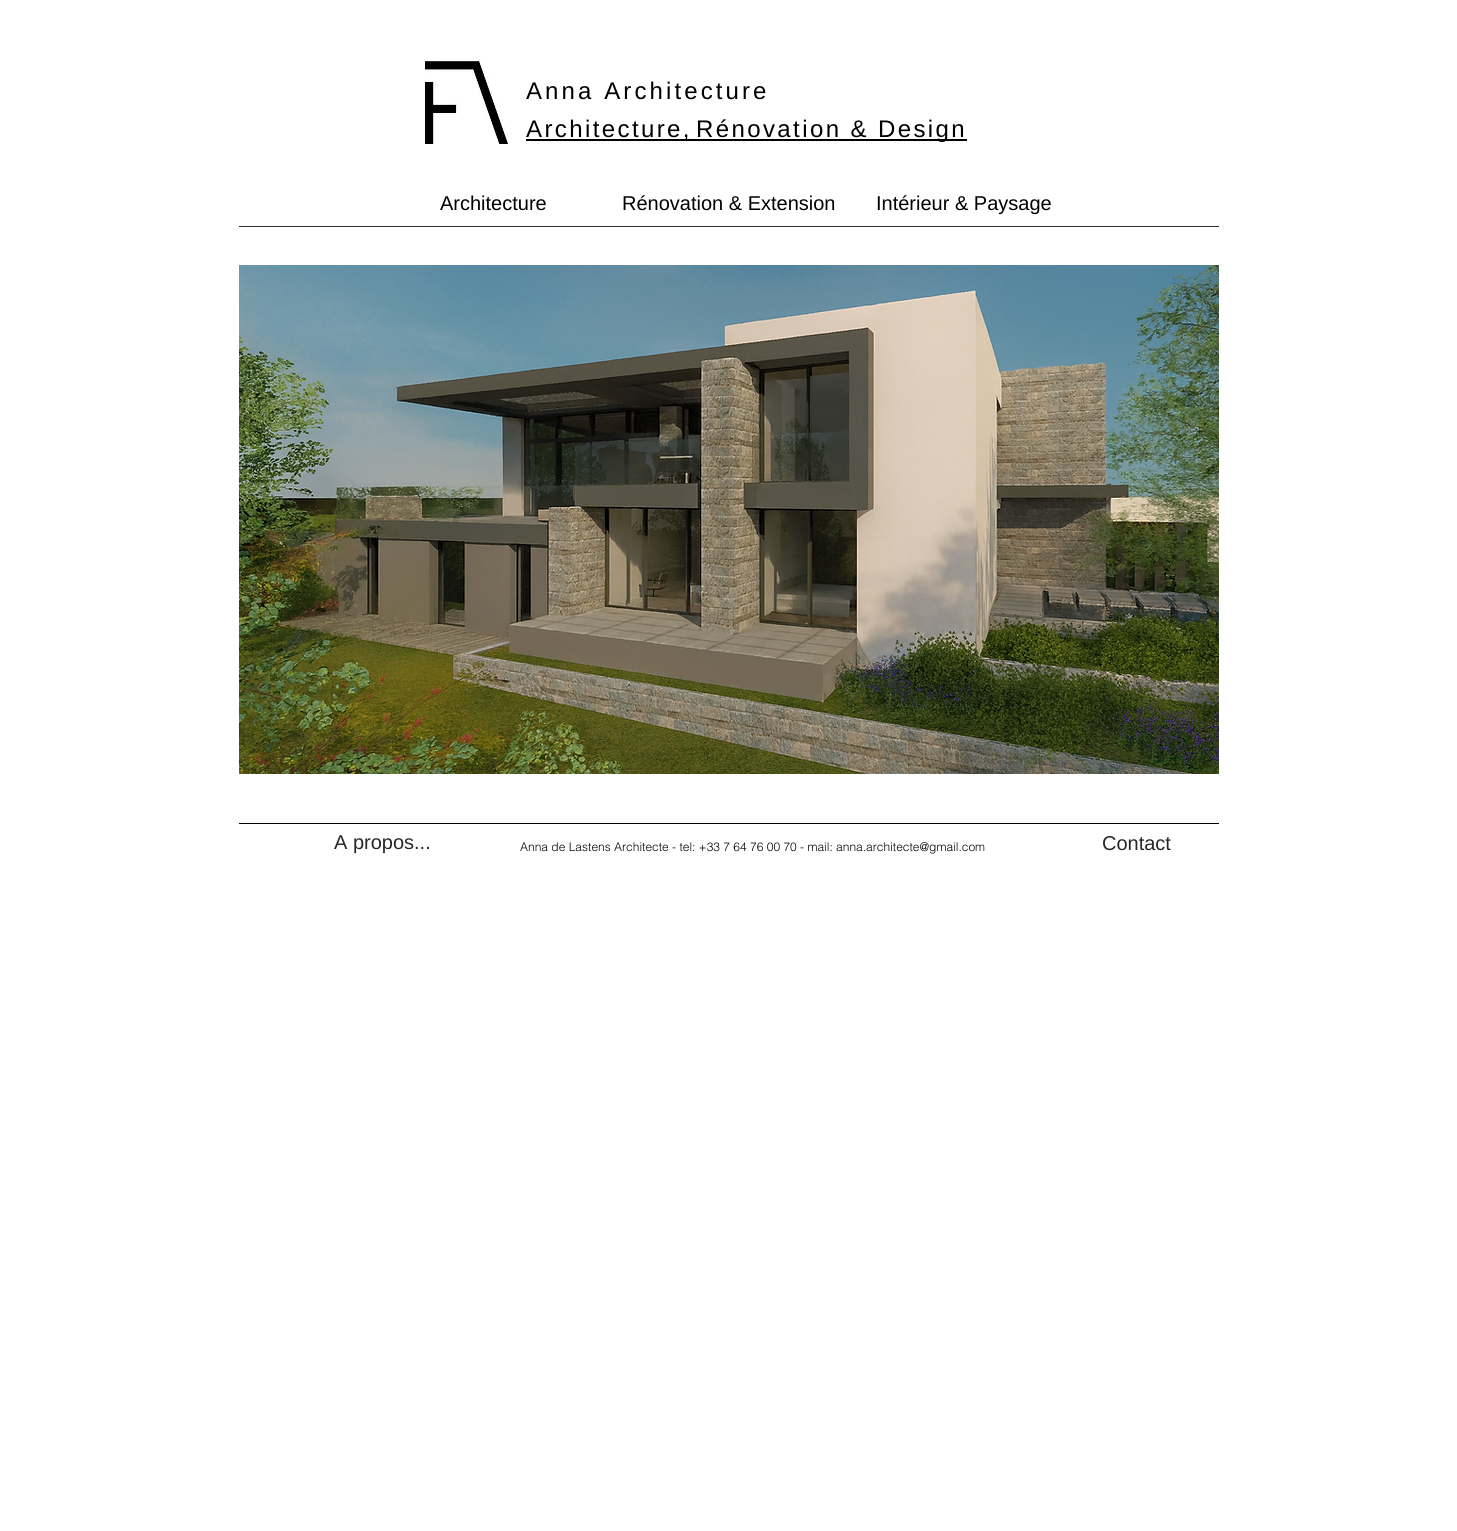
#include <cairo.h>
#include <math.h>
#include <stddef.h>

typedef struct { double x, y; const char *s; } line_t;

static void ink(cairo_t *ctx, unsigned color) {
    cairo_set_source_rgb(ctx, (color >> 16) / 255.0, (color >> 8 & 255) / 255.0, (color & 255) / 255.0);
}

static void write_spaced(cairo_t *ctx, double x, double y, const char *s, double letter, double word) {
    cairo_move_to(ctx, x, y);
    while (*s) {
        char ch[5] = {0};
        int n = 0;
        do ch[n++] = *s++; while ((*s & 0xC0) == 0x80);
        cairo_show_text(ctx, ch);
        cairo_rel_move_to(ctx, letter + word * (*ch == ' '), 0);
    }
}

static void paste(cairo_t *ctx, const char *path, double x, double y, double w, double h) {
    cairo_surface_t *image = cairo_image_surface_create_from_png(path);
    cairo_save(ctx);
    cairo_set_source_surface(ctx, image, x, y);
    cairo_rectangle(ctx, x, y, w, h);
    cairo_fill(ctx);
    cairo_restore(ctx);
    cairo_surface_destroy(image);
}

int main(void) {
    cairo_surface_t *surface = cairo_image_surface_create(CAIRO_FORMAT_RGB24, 1457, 1531);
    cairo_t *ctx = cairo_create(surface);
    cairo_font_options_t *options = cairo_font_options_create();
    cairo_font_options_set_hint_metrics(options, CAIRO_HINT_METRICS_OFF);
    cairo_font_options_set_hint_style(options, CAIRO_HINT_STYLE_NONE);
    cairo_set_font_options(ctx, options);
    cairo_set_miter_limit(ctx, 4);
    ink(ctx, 0xFFFFFF);
    cairo_paint(ctx);
    paste(ctx, "media/1.png", 425, 61, 83, 83);
    cairo_select_font_face(ctx, "Liberation Sans", CAIRO_FONT_SLANT_NORMAL, CAIRO_FONT_WEIGHT_NORMAL);
    cairo_set_font_size(ctx, 24);
    ink(ctx, 0x000000);
    write_spaced(ctx, 526, 99, "Anna Architecture", 3.1, 0);
    cairo_rectangle(ctx, 526, 139, 441, 2);
    cairo_fill(ctx);
    write_spaced(ctx, 526, 137, "Architecture,", 2.4, 0);
    write_spaced(ctx, 696, 137, "Rénovation & Design", 2.4, 0);
    cairo_set_font_size(ctx, 20);
    {
        static const line_t items[] = {
            {440, 210, "Architecture"},
            {622, 210, "Rénovation & Extension"},
            {876, 210, "Intérieur & Paysage"},
        };
        for (size_t i = 0; i < sizeof items / sizeof *items; i++) {
            cairo_move_to(ctx, items[i].x, items[i].y);
            cairo_show_text(ctx, items[i].s);
        }
    }
    ink(ctx, 0x2E2E2E);
    cairo_rectangle(ctx, 239, 226, 980, 1);
    cairo_fill(ctx);
    paste(ctx, "media/2.png", 239, 265, 980, 509);
    ink(ctx, 0x000000);
    cairo_rectangle(ctx, 239, 823, 980, 1);
    cairo_fill(ctx);
    ink(ctx, 0x282626);
    cairo_move_to(ctx, 334, 849);
    cairo_show_text(ctx, "A propos...");
    cairo_select_font_face(ctx, "helvetica Light", CAIRO_FONT_SLANT_NORMAL, CAIRO_FONT_WEIGHT_NORMAL);
    cairo_set_font_size(ctx, 12);
    ink(ctx, 0x000000);
    cairo_move_to(ctx, 520, 851);
    cairo_show_text(ctx, "Anna de Lastens Architecte - tel: +33 7 64 76 00 70 - mail: anna.architecte@gmail.com");
    cairo_select_font_face(ctx, "Liberation Sans", CAIRO_FONT_SLANT_NORMAL, CAIRO_FONT_WEIGHT_NORMAL);
    cairo_set_font_size(ctx, 20);
    ink(ctx, 0x282626);
    cairo_move_to(ctx, 1102, 850);
    cairo_show_text(ctx, "Contact");
    cairo_surface_write_to_png(surface, "image.png");
    cairo_font_options_destroy(options);
    cairo_destroy(ctx);
    cairo_surface_destroy(surface);
    return 0;
}
